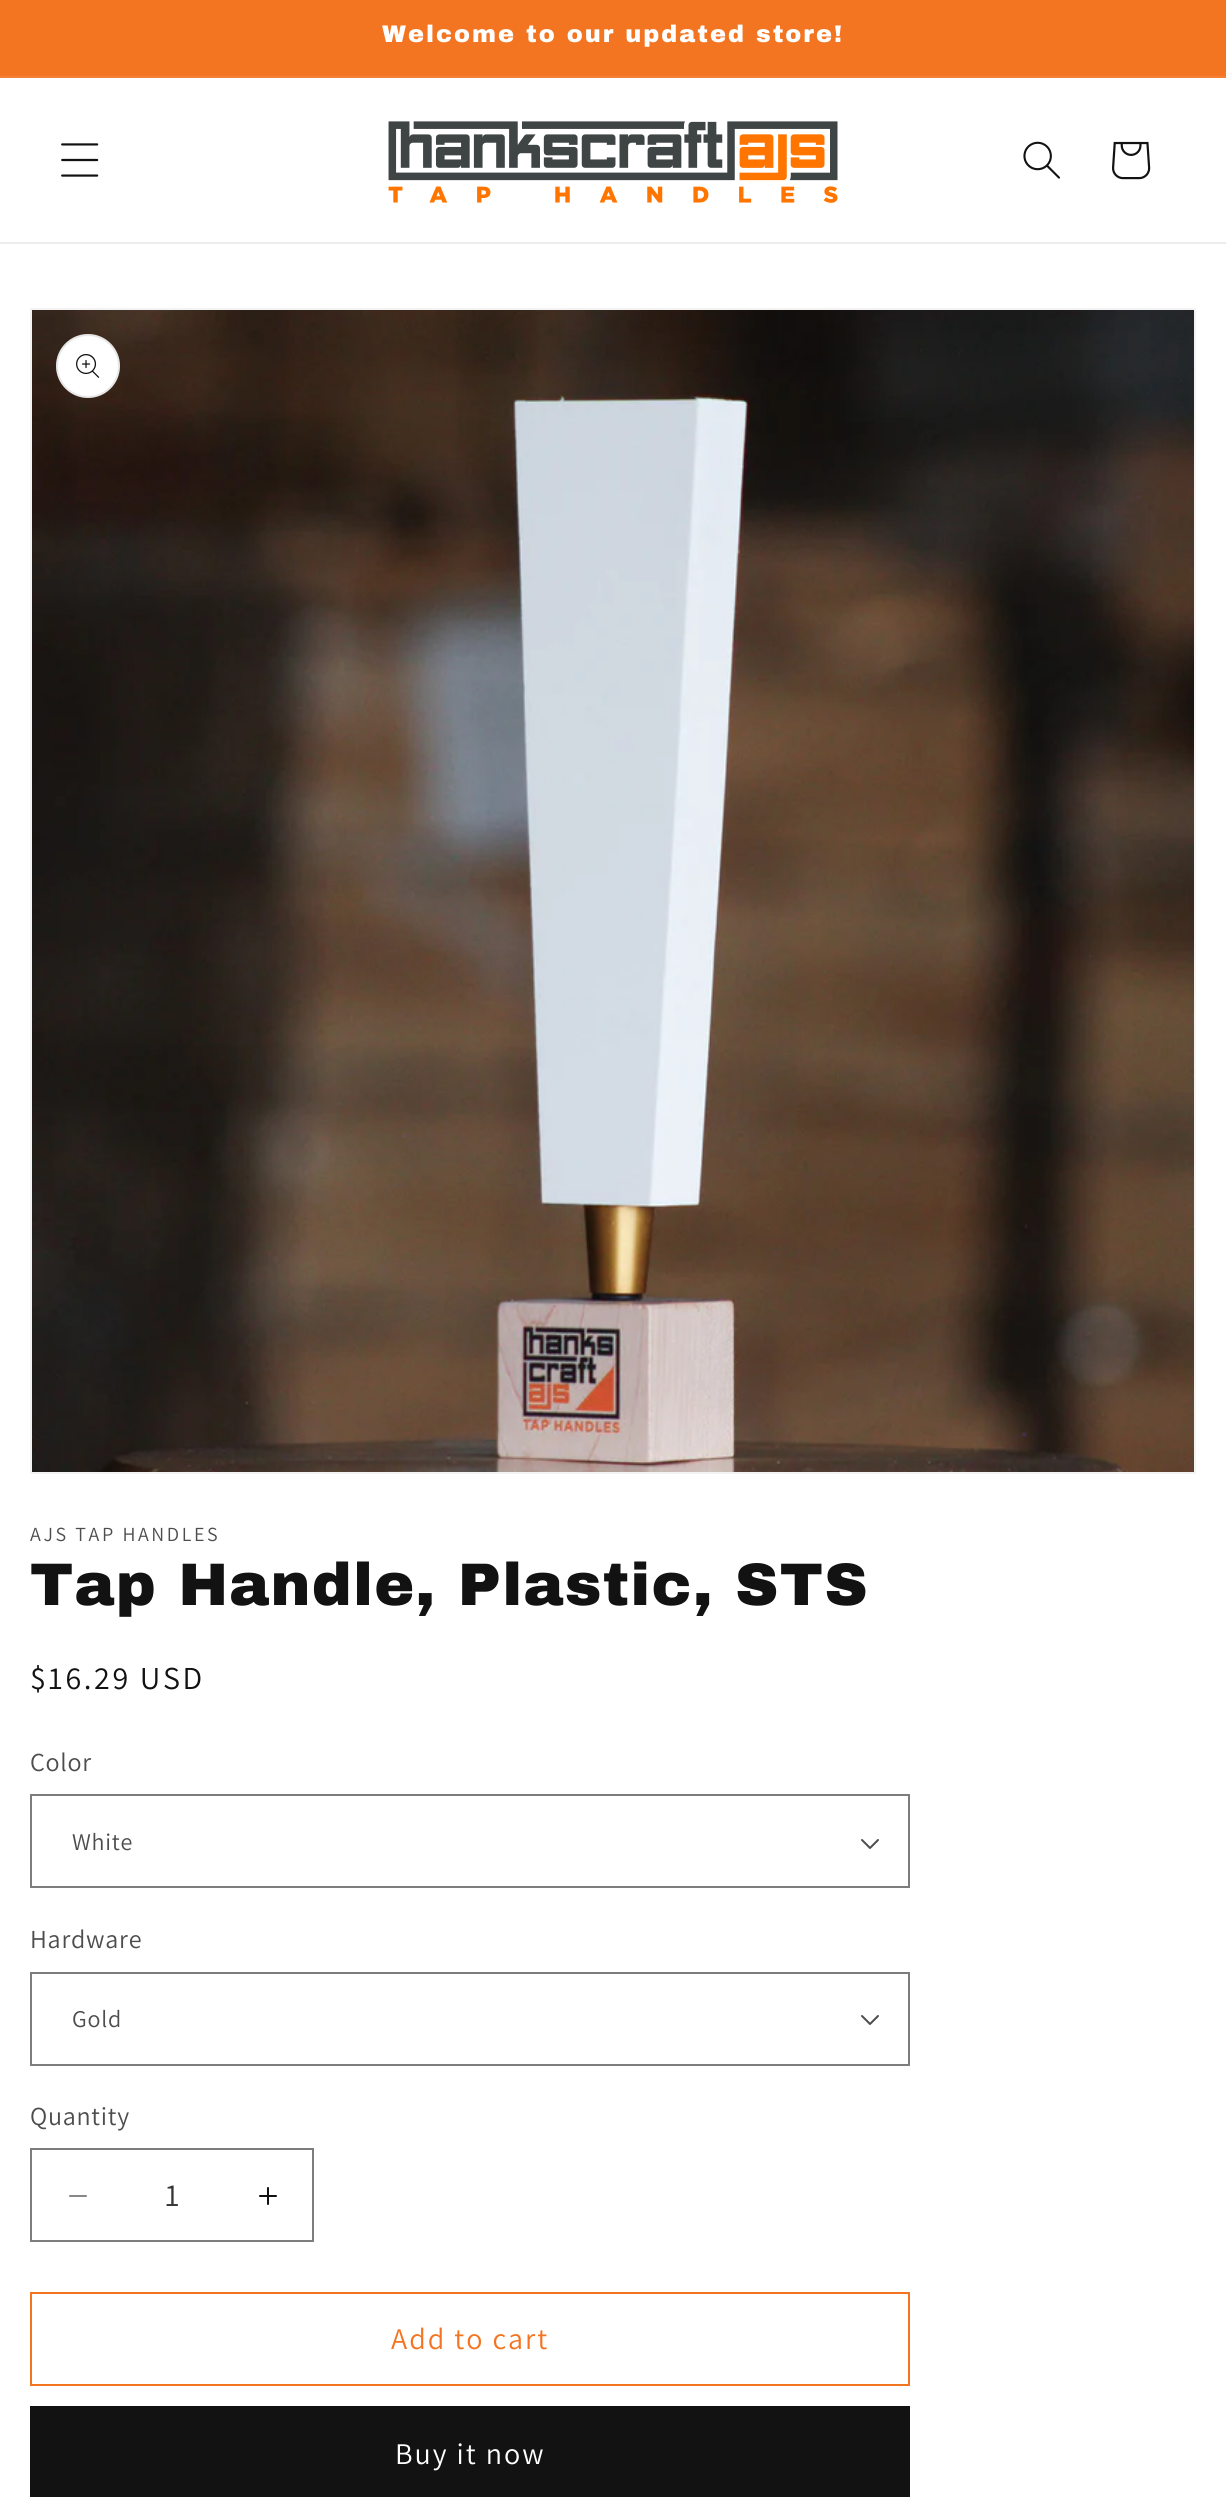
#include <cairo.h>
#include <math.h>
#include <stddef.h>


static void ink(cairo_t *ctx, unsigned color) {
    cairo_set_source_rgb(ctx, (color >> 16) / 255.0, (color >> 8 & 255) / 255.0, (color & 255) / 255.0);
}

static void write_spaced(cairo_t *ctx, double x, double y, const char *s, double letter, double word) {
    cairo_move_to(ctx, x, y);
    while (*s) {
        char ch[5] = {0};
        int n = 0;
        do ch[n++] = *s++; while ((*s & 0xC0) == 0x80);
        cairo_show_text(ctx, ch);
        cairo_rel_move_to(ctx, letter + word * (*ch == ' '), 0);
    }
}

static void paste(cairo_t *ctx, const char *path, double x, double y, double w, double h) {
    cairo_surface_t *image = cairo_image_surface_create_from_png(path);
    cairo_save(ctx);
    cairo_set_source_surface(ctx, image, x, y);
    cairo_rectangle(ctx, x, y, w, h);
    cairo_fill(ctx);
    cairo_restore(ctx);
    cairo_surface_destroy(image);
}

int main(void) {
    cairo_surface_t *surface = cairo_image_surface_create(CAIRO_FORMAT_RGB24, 1226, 2497);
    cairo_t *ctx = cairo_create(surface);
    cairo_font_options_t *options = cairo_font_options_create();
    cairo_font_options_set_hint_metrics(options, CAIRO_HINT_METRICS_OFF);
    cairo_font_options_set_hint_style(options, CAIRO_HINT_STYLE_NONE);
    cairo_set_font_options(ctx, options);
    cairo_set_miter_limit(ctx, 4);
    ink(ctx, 0xFFFFFF);
    cairo_paint(ctx);
    ink(ctx, 0xF47521);
    cairo_rectangle(ctx, 0, 0, 1226, 76);
    cairo_fill(ctx);
    ink(ctx, 0xF58033);
    cairo_rectangle(ctx, 0, 76, 1226, 2);
    cairo_fill(ctx);
    cairo_select_font_face(ctx, "Archivo Black", CAIRO_FONT_SLANT_NORMAL, CAIRO_FONT_WEIGHT_NORMAL);
    cairo_set_font_size(ctx, 24);
    ink(ctx, 0xFFFFFF);
    write_spaced(ctx, 382, 42, "Welcome to our updated store!", 2, 0);
    ink(ctx, 0xECECEC);
    cairo_rectangle(ctx, 0, 242, 1226, 2);
    cairo_fill(ctx);
    paste(ctx, "media/1.png", 61, 143, 38, 34);
    paste(ctx, "media/2.png", 388, 121, 450, 82);
    paste(ctx, "media/3.png", 1023, 141, 37, 38);
    paste(ctx, "media/4.png", 1112, 141, 39, 39);
    cairo_rectangle(ctx, 31, 309, 1164, 1164);
    ink(ctx, 0xF3F3F3);
    cairo_stroke(ctx);
    paste(ctx, "media/5.png", 32, 310, 1162, 1162);
    ink(ctx, 0xFFFFFF);
    cairo_arc(ctx, 88, 366, 32, 0, 2 * M_PI);
    cairo_fill(ctx);
    cairo_arc(ctx, 88, 366, 31, 0, 2 * M_PI);
    cairo_set_source_rgba(ctx, 0.071, 0.071, 0.071, 0.1);
    cairo_stroke(ctx);
    paste(ctx, "media/6.png", 76, 354, 24, 24);
    cairo_select_font_face(ctx, "Assistant", CAIRO_FONT_SLANT_NORMAL, CAIRO_FONT_WEIGHT_NORMAL);
    cairo_set_font_size(ctx, 20);
    ink(ctx, 0x4D4D4D);
    write_spaced(ctx, 30, 1541, "AJS TAP HANDLES", 2.6, 0);
    cairo_select_font_face(ctx, "Archivo Black", CAIRO_FONT_SLANT_NORMAL, CAIRO_FONT_WEIGHT_NORMAL);
    cairo_set_font_size(ctx, 60);
    ink(ctx, 0x121212);
    write_spaced(ctx, 30, 1605, "Tap Handle, Plastic, STS", 1.2, 0);
    cairo_select_font_face(ctx, "Assistant", CAIRO_FONT_SLANT_NORMAL, CAIRO_FONT_WEIGHT_NORMAL);
    cairo_set_font_size(ctx, 32);
    write_spaced(ctx, 30, 1689, "$16.29 USD", 2.6, 0);
    cairo_set_font_size(ctx, 26);
    ink(ctx, 0x4D4D4D);
    write_spaced(ctx, 30, 1771, "Color", 0.75, 0);
    paste(ctx, "media/7.png", 861, 1839, 18, 10);
    cairo_rectangle(ctx, 31, 1795, 878, 92);
    ink(ctx, 0x7D7D7D);
    cairo_stroke(ctx);
    cairo_set_font_size(ctx, 24);
    ink(ctx, 0x4D4D4D);
    write_spaced(ctx, 72, 1850, "White", 0.75, 0);
    cairo_set_font_size(ctx, 26);
    write_spaced(ctx, 30, 1948, "Hardware", 0.75, 0);
    paste(ctx, "media/7.png", 861, 2015, 18, 10);
    cairo_rectangle(ctx, 31, 1973, 878, 92);
    ink(ctx, 0x7D7D7D);
    cairo_stroke(ctx);
    cairo_set_font_size(ctx, 24);
    ink(ctx, 0x4D4D4D);
    write_spaced(ctx, 72, 2027, "Gold", 0.75, 0);
    cairo_set_font_size(ctx, 26);
    write_spaced(ctx, 30, 2125, "Quantity", 0.75, 0);
    paste(ctx, "media/8.png", 69, 2195, 18, 2);
    paste(ctx, "media/9.png", 259, 2187, 18, 18);
    cairo_rectangle(ctx, 31, 2149, 282, 92);
    ink(ctx, 0x7D7D7D);
    cairo_stroke(ctx);
    cairo_set_font_size(ctx, 32);
    ink(ctx, 0x363636);
    cairo_move_to(ctx, 165, 2206);
    cairo_show_text(ctx, "1");
    cairo_rectangle(ctx, 31, 2293, 878, 92);
    ink(ctx, 0xF47521);
    cairo_stroke(ctx);
    cairo_set_font_size(ctx, 30);
    write_spaced(ctx, 391, 2349, "Add to cart", 2, 0);
    ink(ctx, 0x121212);
    cairo_rectangle(ctx, 30, 2406, 880, 91);
    cairo_fill(ctx);
    ink(ctx, 0xFFFFFF);
    write_spaced(ctx, 395, 2464, "Buy it now", 2, 0);
    cairo_surface_write_to_png(surface, "image.png");
    cairo_font_options_destroy(options);
    cairo_destroy(ctx);
    cairo_surface_destroy(surface);
    return 0;
}
